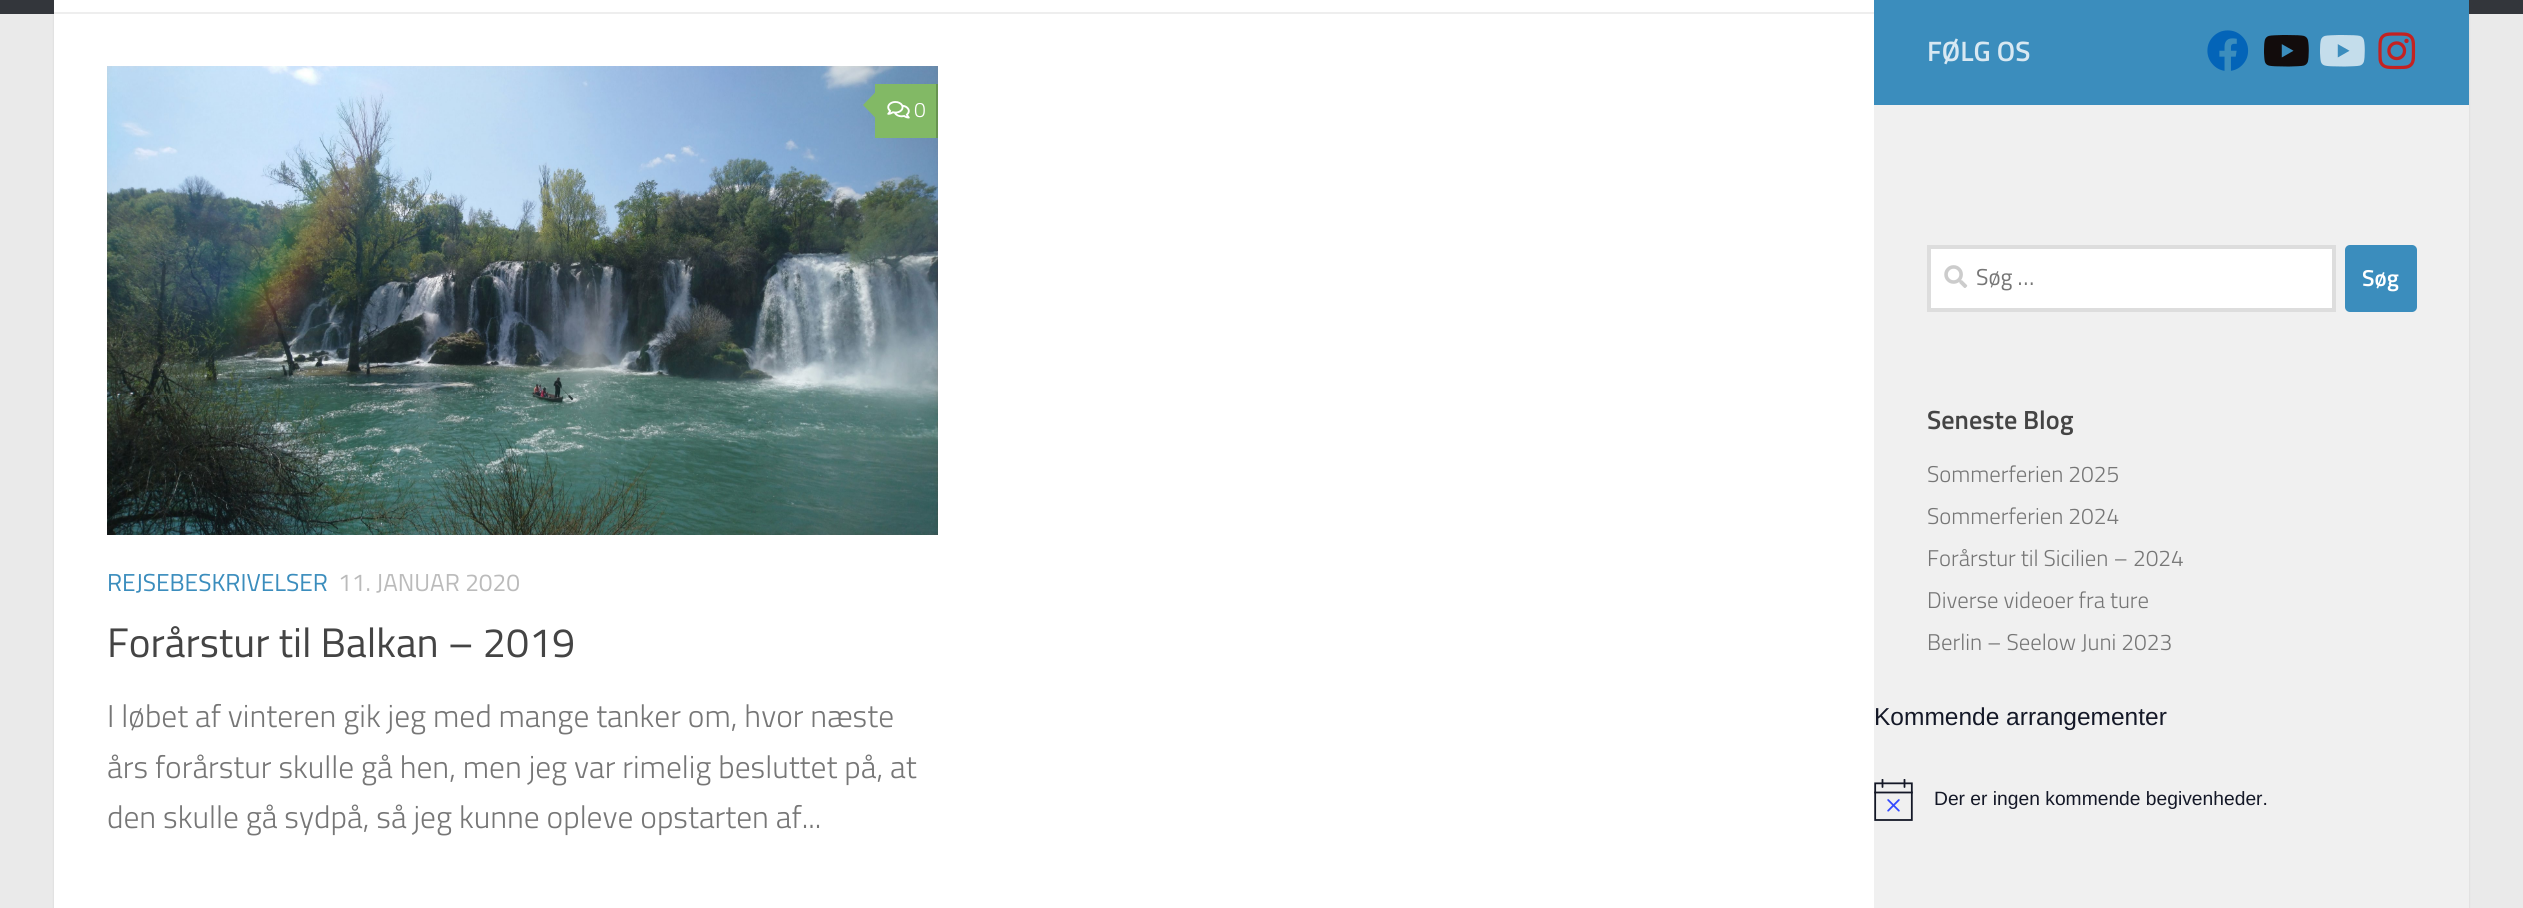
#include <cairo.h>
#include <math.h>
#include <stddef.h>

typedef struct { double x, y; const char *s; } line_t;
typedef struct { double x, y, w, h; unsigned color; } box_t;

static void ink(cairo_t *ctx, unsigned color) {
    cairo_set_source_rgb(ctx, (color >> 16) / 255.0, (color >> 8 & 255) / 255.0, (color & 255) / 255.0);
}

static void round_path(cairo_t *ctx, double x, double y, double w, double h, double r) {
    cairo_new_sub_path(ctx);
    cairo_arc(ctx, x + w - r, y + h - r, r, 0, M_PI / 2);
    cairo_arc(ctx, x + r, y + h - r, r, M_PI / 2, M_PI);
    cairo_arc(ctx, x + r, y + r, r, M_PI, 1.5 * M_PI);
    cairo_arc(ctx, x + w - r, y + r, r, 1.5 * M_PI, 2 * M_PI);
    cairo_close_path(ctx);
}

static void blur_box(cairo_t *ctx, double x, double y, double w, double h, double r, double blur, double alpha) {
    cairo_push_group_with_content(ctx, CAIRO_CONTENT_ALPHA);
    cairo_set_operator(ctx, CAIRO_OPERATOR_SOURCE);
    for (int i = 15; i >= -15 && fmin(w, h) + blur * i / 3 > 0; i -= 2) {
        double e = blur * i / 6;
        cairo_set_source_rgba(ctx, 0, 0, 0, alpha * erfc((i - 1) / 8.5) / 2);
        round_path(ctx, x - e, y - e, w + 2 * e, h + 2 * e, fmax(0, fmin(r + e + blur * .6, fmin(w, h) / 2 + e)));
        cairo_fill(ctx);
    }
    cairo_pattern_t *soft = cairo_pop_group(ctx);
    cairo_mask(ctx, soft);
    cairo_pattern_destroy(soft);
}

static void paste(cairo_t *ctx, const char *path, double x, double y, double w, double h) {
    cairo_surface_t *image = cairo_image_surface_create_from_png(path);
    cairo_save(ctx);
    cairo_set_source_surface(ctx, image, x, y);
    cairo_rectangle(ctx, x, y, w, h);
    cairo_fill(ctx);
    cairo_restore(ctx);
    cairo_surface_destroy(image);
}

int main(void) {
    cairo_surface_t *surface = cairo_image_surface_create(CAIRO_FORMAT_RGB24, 2523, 908);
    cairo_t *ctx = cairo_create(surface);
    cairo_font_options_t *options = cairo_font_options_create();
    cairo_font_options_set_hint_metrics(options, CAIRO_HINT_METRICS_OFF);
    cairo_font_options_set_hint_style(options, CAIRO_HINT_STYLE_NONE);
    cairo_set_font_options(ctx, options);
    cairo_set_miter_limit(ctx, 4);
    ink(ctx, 0xEAEAEA);
    cairo_paint(ctx);
    ink(ctx, 0x000000);
    blur_box(ctx, 54, -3, 2415, 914, 0, 1, 0.1);
    {
        static const box_t items[] = {
            {0, 0, 2523, 14, 0x33363B},
            {54, 0, 1820, 908, 0xFFFFFF},
            {54, 12, 1820, 2, 0xEEEEEE},
        };
        for (size_t i = 0; i < sizeof items / sizeof *items; i++) {
            ink(ctx, items[i].color);
            cairo_rectangle(ctx, items[i].x, items[i].y, items[i].w, items[i].h);
            cairo_fill(ctx);
        }
    }
    paste(ctx, "media/1.png", 107, 66, 831, 469);
    ink(ctx, 0x82B965);
    cairo_rectangle(ctx, 875, 84, 61, 54);
    cairo_fill(ctx);
    ink(ctx, 0x689451);
    cairo_rectangle(ctx, 936, 84, 2, 54);
    cairo_fill(ctx);
    ink(ctx, 0x82B965);
    cairo_new_path(ctx);
    cairo_move_to(ctx, 878.5, 89);
    cairo_line_to(ctx, 878.5, 121);
    cairo_line_to(ctx, 863, 105);
    cairo_close_path(ctx);
    cairo_fill(ctx);
    paste(ctx, "media/2.png", 887, 101, 23, 18);
    cairo_select_font_face(ctx, "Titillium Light", CAIRO_FONT_SLANT_NORMAL, CAIRO_FONT_WEIGHT_NORMAL);
    cairo_set_font_size(ctx, 21);
    ink(ctx, 0xFFFFFF);
    cairo_move_to(ctx, 914, 117);
    cairo_show_text(ctx, "0");
    cairo_select_font_face(ctx, "Titillium", CAIRO_FONT_SLANT_NORMAL, CAIRO_FONT_WEIGHT_NORMAL);
    cairo_set_font_size(ctx, 24.5);
    ink(ctx, 0x3B8DBD);
    cairo_move_to(ctx, 107, 591);
    cairo_show_text(ctx, "REJSEBESKRIVELSER");
    ink(ctx, 0xBBBBBB);
    cairo_move_to(ctx, 338, 591);
    cairo_show_text(ctx, "11. JANUAR 2020");
    cairo_set_font_size(ctx, 41.25);
    ink(ctx, 0x444444);
    cairo_move_to(ctx, 107, 657);
    cairo_show_text(ctx, "Forårstur til Balkan – 2019");
    cairo_select_font_face(ctx, "Titillium Light", CAIRO_FONT_SLANT_NORMAL, CAIRO_FONT_WEIGHT_NORMAL);
    cairo_set_font_size(ctx, 31.5);
    ink(ctx, 0x767676);
    {
        static const line_t items[] = {
            {107, 727, "I løbet af vinteren gik jeg med mange tanker om, hvor næste"},
            {107, 778, "års forårstur skulle gå hen, men jeg var rimelig besluttet på, at"},
            {107, 828, "den skulle gå sydpå, så jeg kunne opleve opstarten af..."},
        };
        for (size_t i = 0; i < sizeof items / sizeof *items; i++) {
            cairo_move_to(ctx, items[i].x, items[i].y);
            cairo_show_text(ctx, items[i].s);
        }
    }
    ink(ctx, 0x3B8DBD);
    cairo_rectangle(ctx, 1874, 0, 595, 105);
    cairo_fill(ctx);
    cairo_select_font_face(ctx, "Titillium SemiBold", CAIRO_FONT_SLANT_NORMAL, CAIRO_FONT_WEIGHT_NORMAL);
    cairo_set_font_size(ctx, 28);
    ink(ctx, 0xD8E8F2);
    cairo_move_to(ctx, 1927, 61);
    cairo_show_text(ctx, "FØLG OS");
    paste(ctx, "media/3.png", 2207, 30, 42, 41);
    paste(ctx, "media/4.png", 2264, 35, 45, 32);
    paste(ctx, "media/5.png", 2320, 35, 45, 32);
    paste(ctx, "media/6.png", 2378, 32, 38, 38);
    ink(ctx, 0xF0F0F0);
    cairo_rectangle(ctx, 1874, 105, 595, 803);
    cairo_fill(ctx);
    ink(ctx, 0xFFFFFF);
    cairo_rectangle(ctx, 1929, 247, 405, 63);
    cairo_fill_preserve(ctx);
    ink(ctx, 0xDDDDDD);
    cairo_set_line_width(ctx, 4);
    cairo_stroke(ctx);
    paste(ctx, "media/7.png", 1944, 265, 24, 23);
    cairo_select_font_face(ctx, "Titillium", CAIRO_FONT_SLANT_NORMAL, CAIRO_FONT_WEIGHT_NORMAL);
    cairo_set_font_size(ctx, 23);
    ink(ctx, 0x767676);
    cairo_move_to(ctx, 1976, 285);
    cairo_show_text(ctx, "Søg …");
    ink(ctx, 0x3B8DBD);
    round_path(ctx, 2345, 245, 72, 67, 5);
    cairo_fill(ctx);
    cairo_select_font_face(ctx, "Titillium SemiBold", CAIRO_FONT_SLANT_NORMAL, CAIRO_FONT_WEIGHT_NORMAL);
    ink(ctx, 0xFFFFFF);
    cairo_move_to(ctx, 2362, 286);
    cairo_show_text(ctx, "Søg");
    cairo_set_font_size(ctx, 26.25);
    ink(ctx, 0x444444);
    cairo_move_to(ctx, 1927, 429);
    cairo_show_text(ctx, "Seneste Blog");
    cairo_select_font_face(ctx, "Titillium Light", CAIRO_FONT_SLANT_NORMAL, CAIRO_FONT_WEIGHT_NORMAL);
    cairo_set_font_size(ctx, 22.75);
    ink(ctx, 0x767676);
    {
        static const line_t items[] = {
            {1927, 482, "Sommerferien 2025"},
            {1927, 524, "Sommerferien 2024"},
            {1927, 566, "Forårstur til Sicilien – 2024"},
            {1927, 608, "Diverse videoer fra ture"},
            {1927, 650, "Berlin – Seelow Juni 2023"},
        };
        for (size_t i = 0; i < sizeof items / sizeof *items; i++) {
            cairo_move_to(ctx, items[i].x, items[i].y);
            cairo_show_text(ctx, items[i].s);
        }
    }
    cairo_select_font_face(ctx, "Liberation Sans", CAIRO_FONT_SLANT_NORMAL, CAIRO_FONT_WEIGHT_NORMAL);
    cairo_set_font_size(ctx, 24.5);
    ink(ctx, 0x141827);
    cairo_move_to(ctx, 1874, 725);
    cairo_show_text(ctx, "Kommende arrangementer");
    paste(ctx, "media/8.png", 1874, 779, 39, 42);
    cairo_set_font_size(ctx, 19.25);
    cairo_move_to(ctx, 1934, 805);
    cairo_show_text(ctx, "Der er ingen kommende begivenheder.");
    cairo_surface_write_to_png(surface, "image.png");
    cairo_font_options_destroy(options);
    cairo_destroy(ctx);
    cairo_surface_destroy(surface);
    return 0;
}
